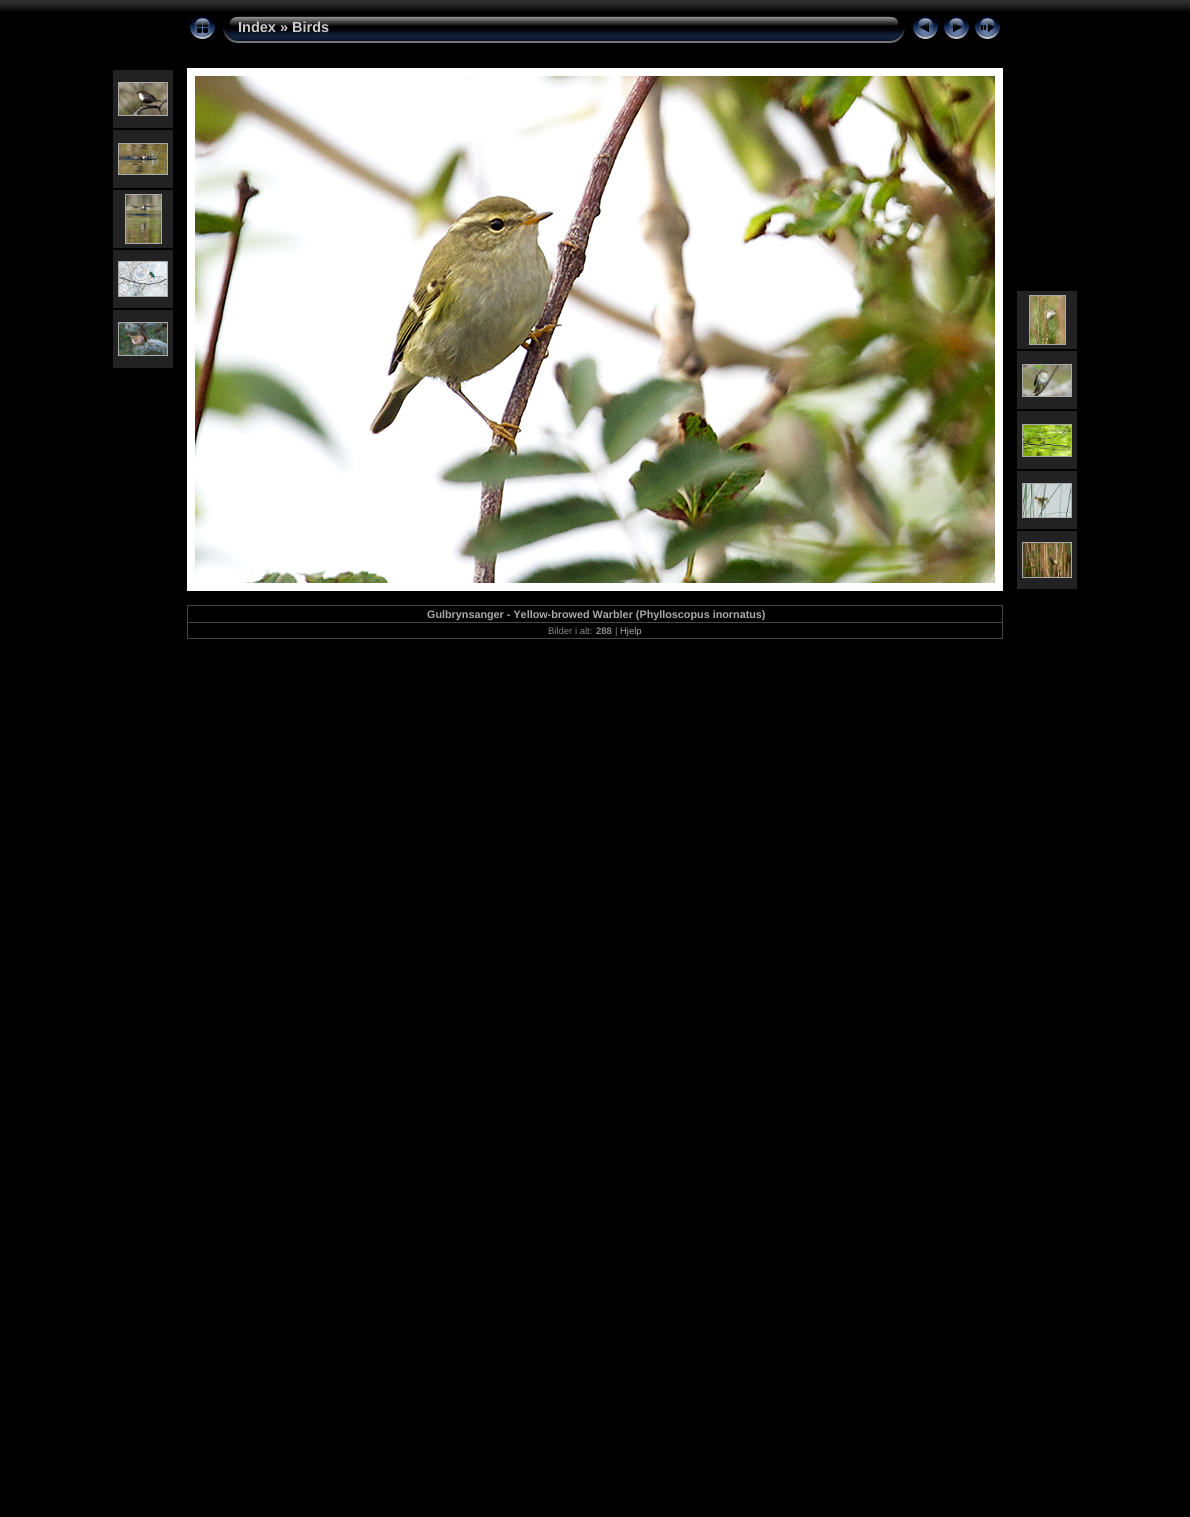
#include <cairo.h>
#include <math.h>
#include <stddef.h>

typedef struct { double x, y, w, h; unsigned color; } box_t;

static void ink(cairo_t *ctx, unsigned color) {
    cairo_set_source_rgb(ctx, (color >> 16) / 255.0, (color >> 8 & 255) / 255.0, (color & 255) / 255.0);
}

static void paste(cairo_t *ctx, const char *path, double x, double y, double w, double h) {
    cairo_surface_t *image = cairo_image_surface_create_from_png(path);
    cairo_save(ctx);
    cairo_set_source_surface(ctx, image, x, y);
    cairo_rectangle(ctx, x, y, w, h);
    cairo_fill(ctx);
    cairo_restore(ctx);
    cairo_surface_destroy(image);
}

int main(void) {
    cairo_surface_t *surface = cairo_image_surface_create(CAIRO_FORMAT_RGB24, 1190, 1517);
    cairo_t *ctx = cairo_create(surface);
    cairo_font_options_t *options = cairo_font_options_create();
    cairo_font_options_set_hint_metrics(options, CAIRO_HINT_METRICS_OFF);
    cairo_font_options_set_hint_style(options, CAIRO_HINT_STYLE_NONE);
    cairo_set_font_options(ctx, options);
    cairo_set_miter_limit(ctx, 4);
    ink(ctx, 0x000000);
    cairo_paint(ctx);
    paste(ctx, "media/1.png", 0, 0, 1190, 12);
    paste(ctx, "media/2.png", 190, 16, 25, 23);
    paste(ctx, "media/3.png", 223, 16, 15, 27);
    paste(ctx, "media/4.png", 238, 16, 652, 27);
    cairo_select_font_face(ctx, "Liberation Sans", CAIRO_FONT_SLANT_NORMAL, CAIRO_FONT_WEIGHT_BOLD);
    cairo_set_font_size(ctx, 14.5);
    ink(ctx, 0xCCCCCC);
    cairo_move_to(ctx, 238, 32);
    cairo_show_text(ctx, "Index » Birds");
    paste(ctx, "media/5.png", 890, 16, 15, 27);
    paste(ctx, "media/6.png", 913, 16, 25, 23);
    paste(ctx, "media/7.png", 944, 16, 25, 23);
    paste(ctx, "media/8.png", 975, 16, 25, 23);
    ink(ctx, 0x222222);
    cairo_rectangle(ctx, 113, 70, 60, 58);
    cairo_fill(ctx);
    cairo_rectangle(ctx, 118.5, 82.5, 49, 33);
    ink(ctx, 0xAAAAAA);
    cairo_set_line_width(ctx, 1);
    cairo_stroke(ctx);
    paste(ctx, "media/9.png", 119, 83, 48, 32);
    ink(ctx, 0x222222);
    cairo_rectangle(ctx, 113, 130, 60, 58);
    cairo_fill(ctx);
    cairo_rectangle(ctx, 118.5, 143.5, 49, 31);
    ink(ctx, 0xAAAAAA);
    cairo_stroke(ctx);
    paste(ctx, "media/10.png", 119, 144, 48, 30);
    ink(ctx, 0x222222);
    cairo_rectangle(ctx, 113, 190, 60, 58);
    cairo_fill(ctx);
    cairo_rectangle(ctx, 125.5, 194.5, 36, 49);
    ink(ctx, 0xAAAAAA);
    cairo_stroke(ctx);
    paste(ctx, "media/11.png", 126, 195, 35, 48);
    ink(ctx, 0x222222);
    cairo_rectangle(ctx, 113, 250, 60, 58);
    cairo_fill(ctx);
    cairo_rectangle(ctx, 118.5, 261.5, 49, 35);
    ink(ctx, 0xAAAAAA);
    cairo_stroke(ctx);
    paste(ctx, "media/12.png", 119, 262, 48, 34);
    ink(ctx, 0x222222);
    cairo_rectangle(ctx, 113, 310, 60, 58);
    cairo_fill(ctx);
    cairo_rectangle(ctx, 118.5, 322.5, 49, 33);
    ink(ctx, 0xAAAAAA);
    cairo_stroke(ctx);
    paste(ctx, "media/13.png", 119, 323, 48, 32);
    cairo_rectangle(ctx, 191, 72, 808, 515);
    ink(ctx, 0xFFFFFF);
    cairo_set_line_width(ctx, 8);
    cairo_stroke(ctx);
    paste(ctx, "media/14.png", 195, 76, 800, 507);
    ink(ctx, 0x222222);
    cairo_rectangle(ctx, 1017, 291, 60, 58);
    cairo_fill(ctx);
    cairo_rectangle(ctx, 1029.5, 295.5, 36, 49);
    ink(ctx, 0xAAAAAA);
    cairo_set_line_width(ctx, 1);
    cairo_stroke(ctx);
    paste(ctx, "media/15.png", 1030, 296, 35, 48);
    ink(ctx, 0x222222);
    cairo_rectangle(ctx, 1017, 351, 60, 58);
    cairo_fill(ctx);
    cairo_rectangle(ctx, 1022.5, 364.5, 49, 32);
    ink(ctx, 0xAAAAAA);
    cairo_stroke(ctx);
    paste(ctx, "media/16.png", 1023, 365, 48, 31);
    ink(ctx, 0x222222);
    cairo_rectangle(ctx, 1017, 411, 60, 58);
    cairo_fill(ctx);
    cairo_rectangle(ctx, 1022.5, 424.5, 49, 32);
    ink(ctx, 0xAAAAAA);
    cairo_stroke(ctx);
    paste(ctx, "media/17.png", 1023, 425, 48, 31);
    ink(ctx, 0x222222);
    cairo_rectangle(ctx, 1017, 471, 60, 58);
    cairo_fill(ctx);
    cairo_rectangle(ctx, 1022.5, 483.5, 49, 34);
    ink(ctx, 0xAAAAAA);
    cairo_stroke(ctx);
    paste(ctx, "media/18.png", 1023, 484, 48, 33);
    ink(ctx, 0x222222);
    cairo_rectangle(ctx, 1017, 531, 60, 58);
    cairo_fill(ctx);
    cairo_rectangle(ctx, 1022.5, 542.5, 49, 35);
    ink(ctx, 0xAAAAAA);
    cairo_stroke(ctx);
    paste(ctx, "media/19.png", 1023, 543, 48, 34);
    {
        static const box_t items[] = {
            {187, 605, 816, 1, 0x444444},
            {1002, 605, 1, 34, 0x444444},
            {187, 638, 816, 1, 0x444444},
            {187, 605, 1, 34, 0x444444},
        };
        for (size_t i = 0; i < sizeof items / sizeof *items; i++) {
            ink(ctx, items[i].color);
            cairo_rectangle(ctx, items[i].x, items[i].y, items[i].w, items[i].h);
            cairo_fill(ctx);
        }
    }
    cairo_set_font_size(ctx, 10.8);
    ink(ctx, 0xAAAAAA);
    cairo_move_to(ctx, 427, 618);
    cairo_show_text(ctx, "Gulbrynsanger - Yellow-browed Warbler (Phylloscopus inornatus)");
    ink(ctx, 0x444444);
    cairo_rectangle(ctx, 187, 622, 816, 1);
    cairo_fill(ctx);
    cairo_select_font_face(ctx, "Liberation Sans", CAIRO_FONT_SLANT_NORMAL, CAIRO_FONT_WEIGHT_NORMAL);
    cairo_set_font_size(ctx, 9.5);
    ink(ctx, 0x888888);
    cairo_move_to(ctx, 548, 634);
    cairo_show_text(ctx, "Bilder i alt:");
    cairo_select_font_face(ctx, "Liberation Sans", CAIRO_FONT_SLANT_NORMAL, CAIRO_FONT_WEIGHT_BOLD);
    cairo_move_to(ctx, 596, 634);
    cairo_show_text(ctx, "288");
    cairo_select_font_face(ctx, "Liberation Sans", CAIRO_FONT_SLANT_NORMAL, CAIRO_FONT_WEIGHT_NORMAL);
    cairo_move_to(ctx, 615, 634);
    cairo_show_text(ctx, "|");
    ink(ctx, 0xAAAAAA);
    cairo_move_to(ctx, 620, 634);
    cairo_show_text(ctx, "Hjelp");
    cairo_surface_write_to_png(surface, "image.png");
    cairo_font_options_destroy(options);
    cairo_destroy(ctx);
    cairo_surface_destroy(surface);
    return 0;
}
